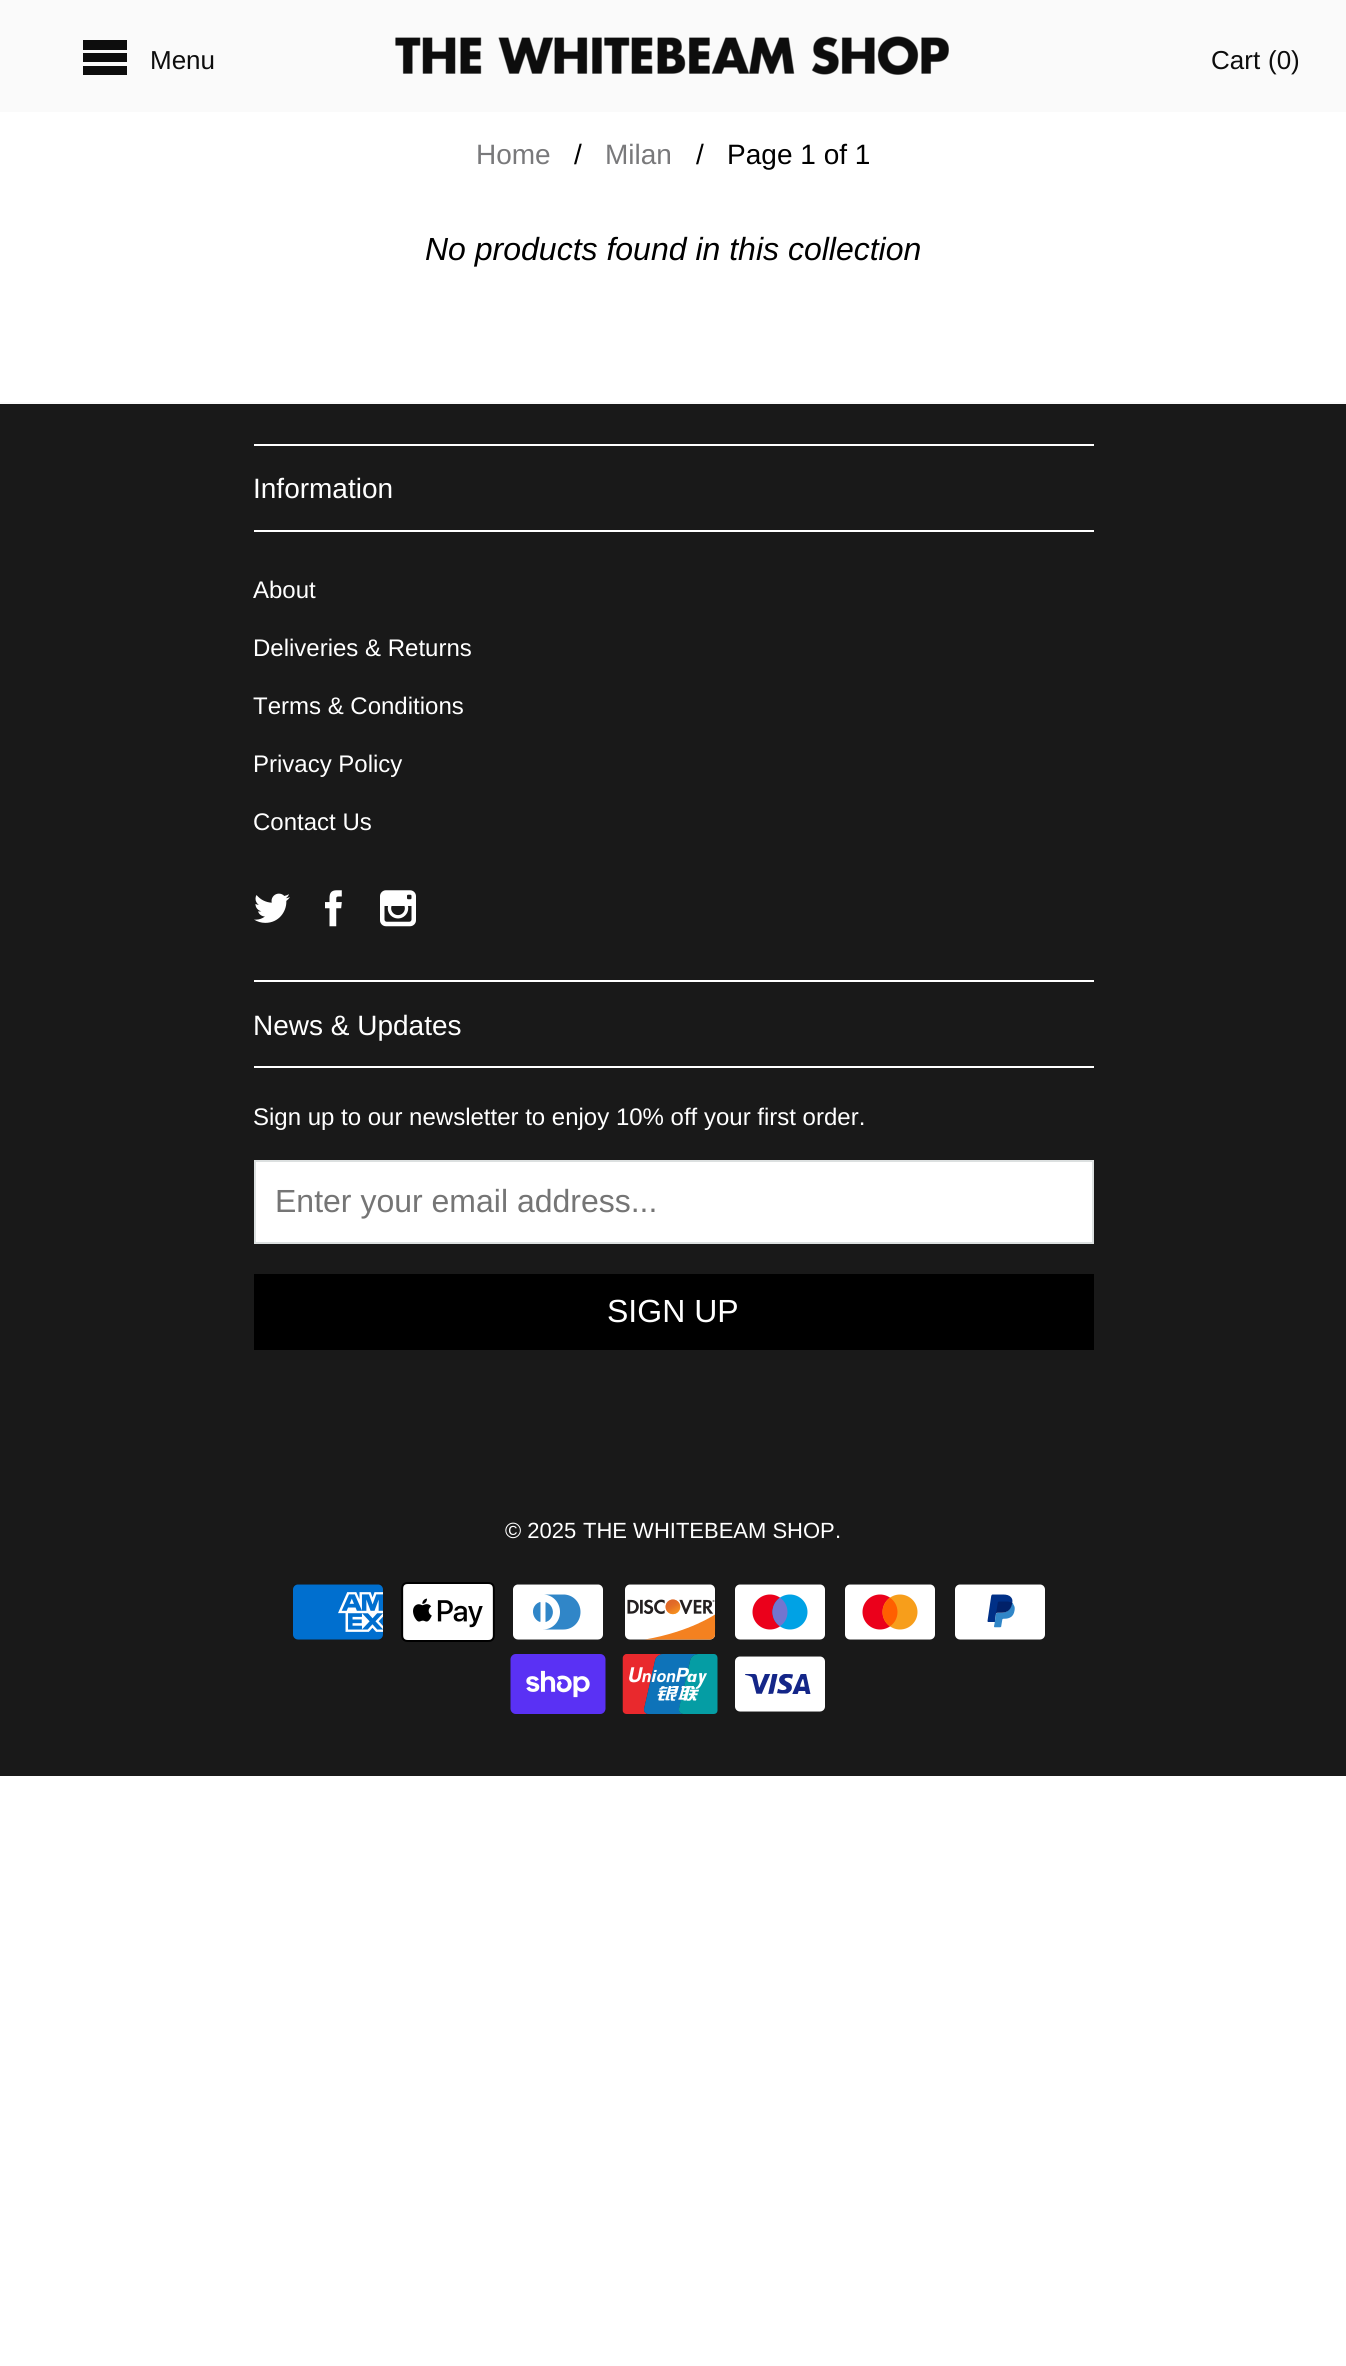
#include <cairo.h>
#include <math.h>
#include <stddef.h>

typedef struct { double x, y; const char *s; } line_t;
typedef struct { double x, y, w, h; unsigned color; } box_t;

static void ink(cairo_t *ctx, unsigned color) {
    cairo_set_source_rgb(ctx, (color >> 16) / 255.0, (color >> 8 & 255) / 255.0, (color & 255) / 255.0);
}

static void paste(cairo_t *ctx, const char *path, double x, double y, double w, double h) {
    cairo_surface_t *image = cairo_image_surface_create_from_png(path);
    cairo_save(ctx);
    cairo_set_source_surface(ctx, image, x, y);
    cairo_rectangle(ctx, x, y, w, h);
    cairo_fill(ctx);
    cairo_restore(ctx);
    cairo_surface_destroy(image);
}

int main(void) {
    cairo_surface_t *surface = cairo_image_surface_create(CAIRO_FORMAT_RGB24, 1346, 2366);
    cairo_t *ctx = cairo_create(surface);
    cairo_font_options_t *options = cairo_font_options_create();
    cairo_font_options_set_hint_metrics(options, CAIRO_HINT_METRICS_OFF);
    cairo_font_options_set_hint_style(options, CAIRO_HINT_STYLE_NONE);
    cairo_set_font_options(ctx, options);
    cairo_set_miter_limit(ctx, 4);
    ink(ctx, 0xFFFFFF);
    cairo_paint(ctx);
    ink(ctx, 0xFAFAFA);
    cairo_rectangle(ctx, 0, 0, 1346, 112);
    cairo_fill(ctx);
    ink(ctx, 0x0D0D0D);
    cairo_new_path(ctx);
    cairo_move_to(ctx, 83, 40);
    cairo_line_to(ctx, 83, 50);
    cairo_line_to(ctx, 127, 50);
    cairo_line_to(ctx, 127, 40);
    cairo_close_path(ctx);
    cairo_move_to(ctx, 83, 53);
    cairo_line_to(ctx, 83, 62);
    cairo_line_to(ctx, 127, 62);
    cairo_line_to(ctx, 127, 53);
    cairo_close_path(ctx);
    cairo_move_to(ctx, 83, 66);
    cairo_line_to(ctx, 83, 75);
    cairo_line_to(ctx, 127, 75);
    cairo_line_to(ctx, 127, 66);
    cairo_close_path(ctx);
    cairo_fill(ctx);
    cairo_select_font_face(ctx, "Liberation Sans", CAIRO_FONT_SLANT_NORMAL, CAIRO_FONT_WEIGHT_NORMAL);
    cairo_set_font_size(ctx, 26);
    cairo_move_to(ctx, 150, 69);
    cairo_show_text(ctx, "Menu");
    paste(ctx, "media/1.png", 395, 36, 554, 39);
    cairo_move_to(ctx, 1211, 69);
    cairo_show_text(ctx, "Cart");
    cairo_move_to(ctx, 1268, 69);
    cairo_show_text(ctx, "(0)");
    cairo_set_font_size(ctx, 28);
    ink(ctx, 0x79797B);
    cairo_move_to(ctx, 476, 164);
    cairo_show_text(ctx, "Home");
    ink(ctx, 0x000000);
    cairo_move_to(ctx, 574, 164);
    cairo_show_text(ctx, "/");
    ink(ctx, 0x79797B);
    cairo_move_to(ctx, 605, 164);
    cairo_show_text(ctx, "Milan");
    ink(ctx, 0x000000);
    cairo_move_to(ctx, 696, 164);
    cairo_show_text(ctx, "/   Page 1 of 1");
    cairo_select_font_face(ctx, "Liberation Sans", CAIRO_FONT_SLANT_ITALIC, CAIRO_FONT_WEIGHT_NORMAL);
    cairo_set_font_size(ctx, 32);
    cairo_move_to(ctx, 425, 260);
    cairo_show_text(ctx, "No products found in this collection");
    {
        static const box_t items[] = {
            {0, 404, 1346, 1372, 0x191919},
            {0, 402, 1346, 2, 0xFAFAFA},
            {254, 444, 840, 2, 0xFFFFFF},
            {254, 530, 840, 2, 0xFFFFFF},
        };
        for (size_t i = 0; i < sizeof items / sizeof *items; i++) {
            ink(ctx, items[i].color);
            cairo_rectangle(ctx, items[i].x, items[i].y, items[i].w, items[i].h);
            cairo_fill(ctx);
        }
    }
    cairo_select_font_face(ctx, "Liberation Sans", CAIRO_FONT_SLANT_NORMAL, CAIRO_FONT_WEIGHT_NORMAL);
    cairo_set_font_size(ctx, 28);
    cairo_move_to(ctx, 253, 498);
    cairo_show_text(ctx, "Information");
    cairo_set_font_size(ctx, 24);
    {
        static const line_t items[] = {
            {253, 598, "About"},
            {253, 656, "Deliveries & Returns"},
            {253, 714, "Terms & Conditions"},
            {253, 772, "Privacy Policy"},
            {253, 830, "Contact Us"},
        };
        for (size_t i = 0; i < sizeof items / sizeof *items; i++) {
            cairo_move_to(ctx, items[i].x, items[i].y);
            cairo_show_text(ctx, items[i].s);
        }
    }
    paste(ctx, "media/2.png", 254, 893, 36, 30);
    paste(ctx, "media/3.png", 325, 890, 17, 37);
    paste(ctx, "media/4.png", 380, 890, 36, 37);
    cairo_rectangle(ctx, 254, 980, 840, 2);
    cairo_fill(ctx);
    cairo_rectangle(ctx, 254, 1066, 840, 2);
    cairo_fill(ctx);
    cairo_set_font_size(ctx, 28);
    cairo_move_to(ctx, 253, 1035);
    cairo_show_text(ctx, "News & Updates");
    cairo_set_font_size(ctx, 24);
    cairo_move_to(ctx, 253, 1125);
    cairo_show_text(ctx, "Sign up to our newsletter to enjoy 10% off your first order.");
    cairo_rectangle(ctx, 255, 1161, 838, 82);
    cairo_fill_preserve(ctx);
    ink(ctx, 0xDCE0E0);
    cairo_stroke(ctx);
    cairo_set_font_size(ctx, 32);
    ink(ctx, 0x757575);
    cairo_move_to(ctx, 275, 1212);
    cairo_show_text(ctx, "Enter your email address...");
    ink(ctx, 0x000000);
    cairo_rectangle(ctx, 254, 1274, 840, 76);
    cairo_fill(ctx);
    ink(ctx, 0xFFFFFF);
    cairo_move_to(ctx, 607, 1322);
    cairo_show_text(ctx, "SIGN UP");
    cairo_set_font_size(ctx, 22);
    {
        static const line_t items[] = {
            {505, 1538, "© 2025"},
            {583, 1538, "THE WHITEBEAM SHOP"},
            {835, 1538, "."},
        };
        for (size_t i = 0; i < sizeof items / sizeof *items; i++) {
            cairo_move_to(ctx, items[i].x, items[i].y);
            cairo_show_text(ctx, items[i].s);
        }
    }
    paste(ctx, "media/5.png", 293, 1584, 90, 56);
    paste(ctx, "media/6.png", 401, 1582, 94, 60);
    paste(ctx, "media/7.png", 513, 1584, 90, 56);
    paste(ctx, "media/8.png", 625, 1584, 91, 56);
    paste(ctx, "media/9.png", 735, 1584, 90, 56);
    paste(ctx, "media/10.png", 845, 1584, 90, 56);
    paste(ctx, "media/11.png", 955, 1584, 90, 56);
    paste(ctx, "media/12.png", 510, 1654, 96, 60);
    paste(ctx, "media/13.png", 622, 1654, 96, 60);
    paste(ctx, "media/14.png", 735, 1656, 90, 56);
    cairo_surface_write_to_png(surface, "image.png");
    cairo_font_options_destroy(options);
    cairo_destroy(ctx);
    cairo_surface_destroy(surface);
    return 0;
}
